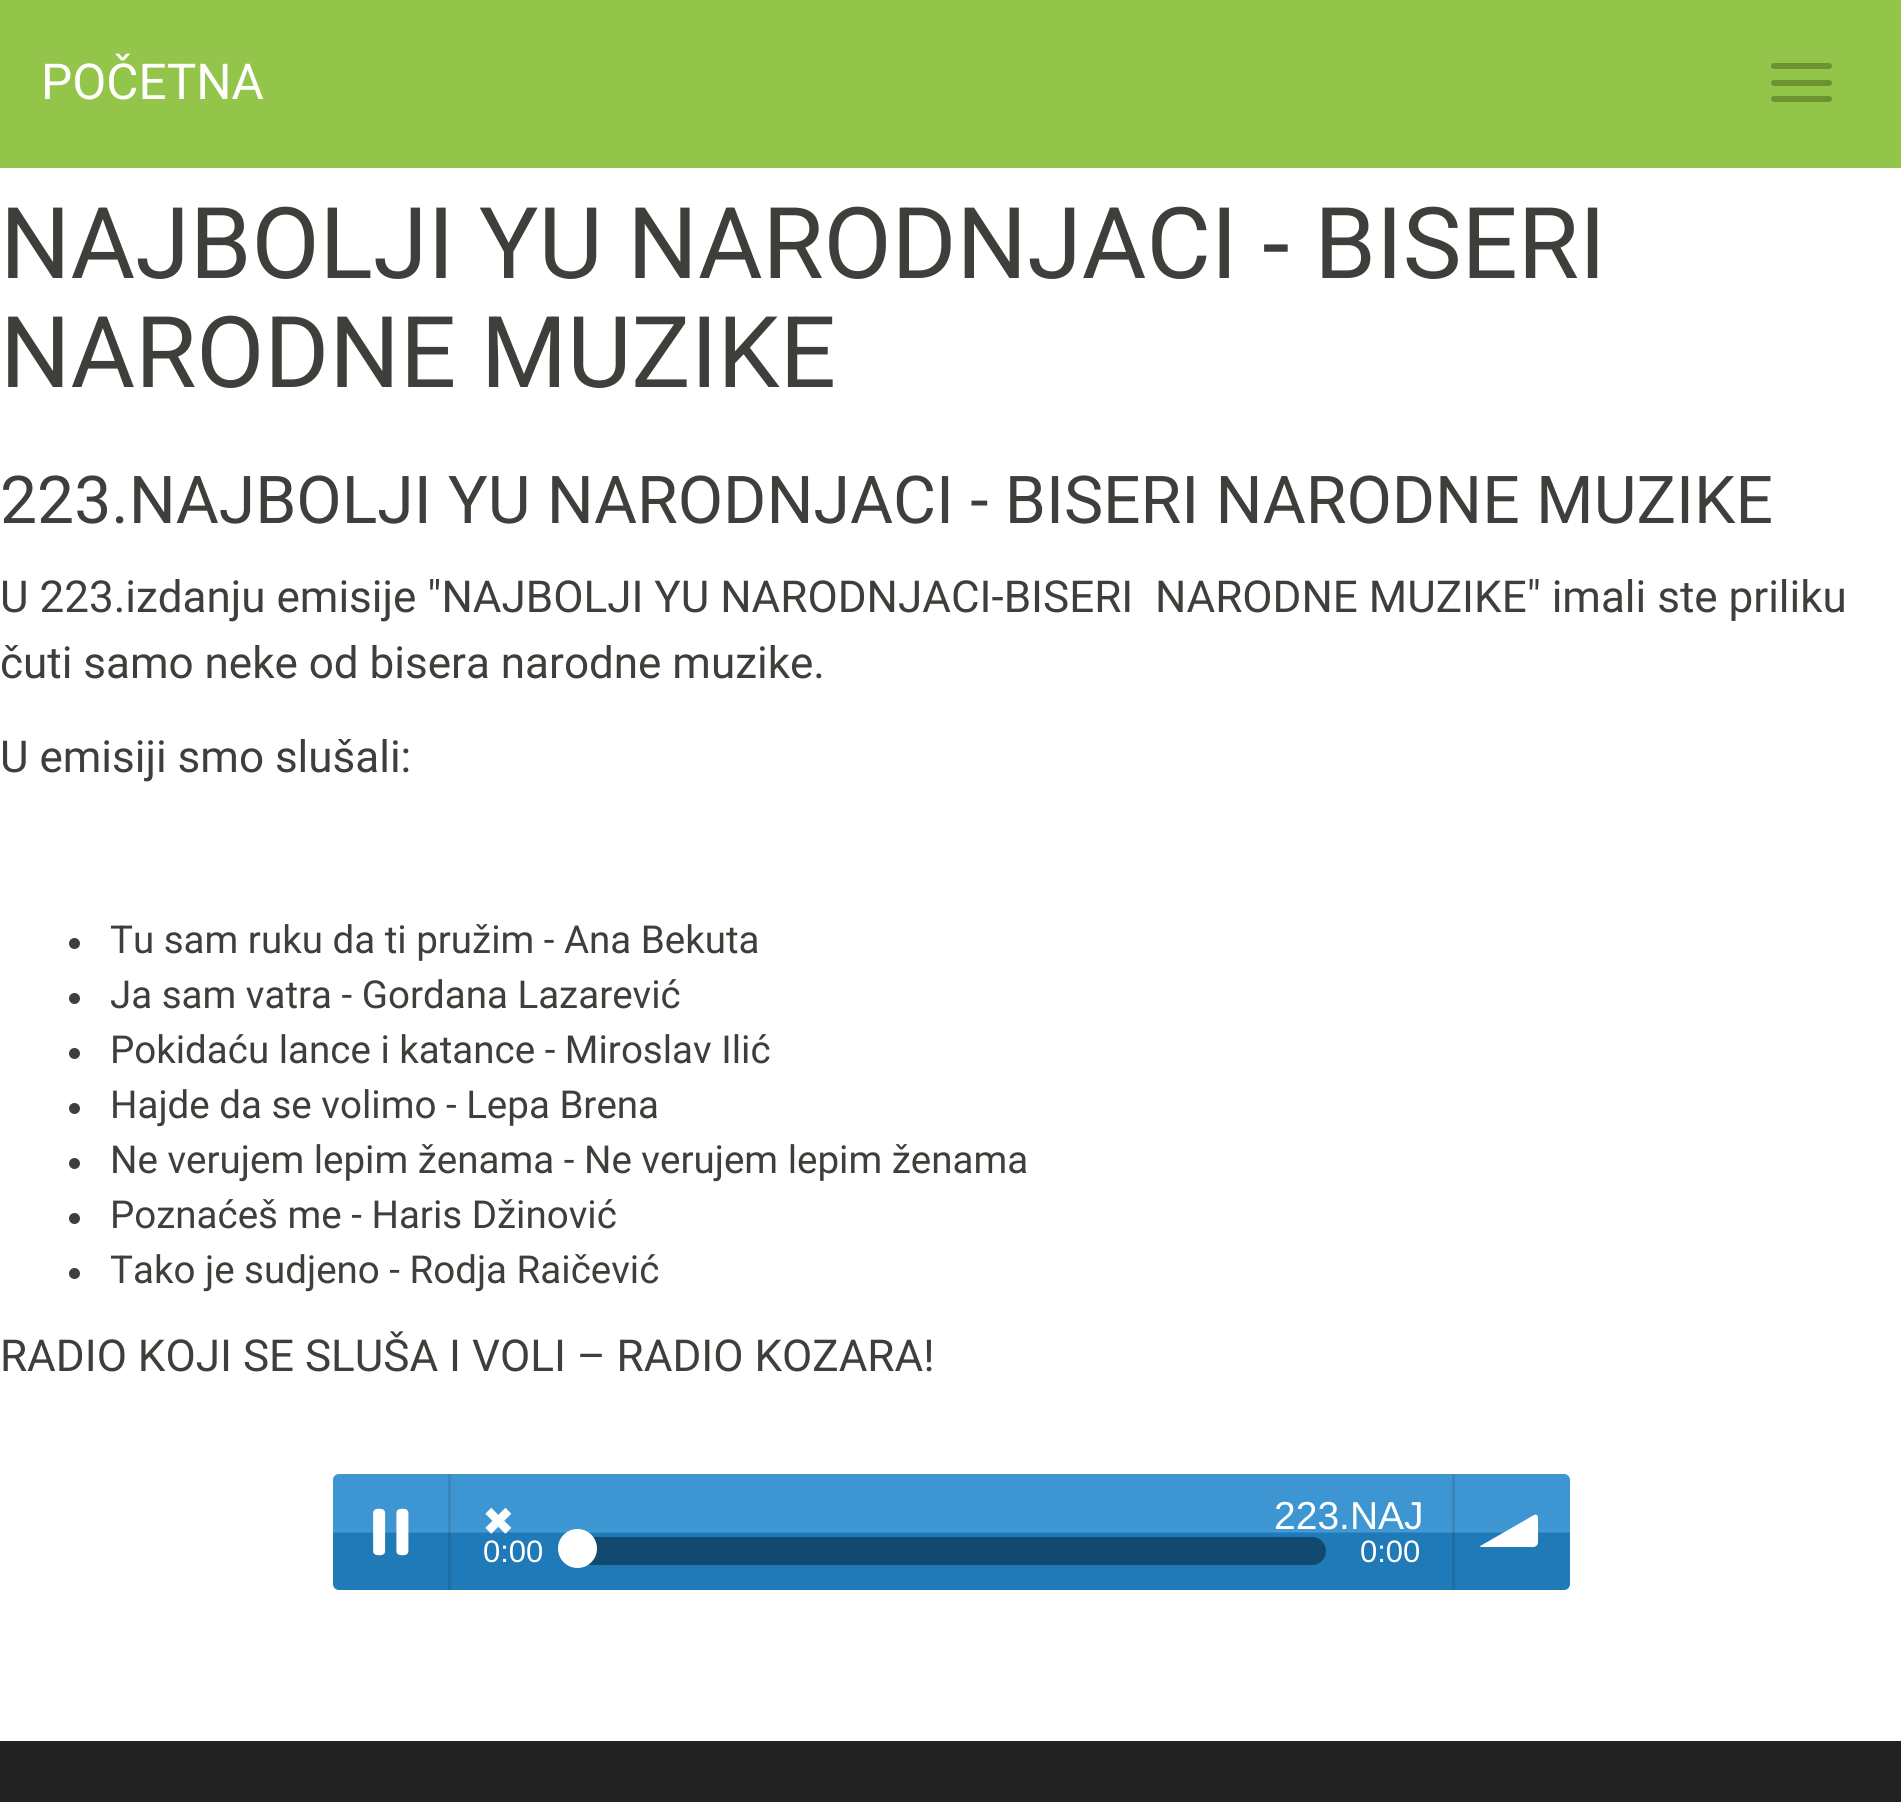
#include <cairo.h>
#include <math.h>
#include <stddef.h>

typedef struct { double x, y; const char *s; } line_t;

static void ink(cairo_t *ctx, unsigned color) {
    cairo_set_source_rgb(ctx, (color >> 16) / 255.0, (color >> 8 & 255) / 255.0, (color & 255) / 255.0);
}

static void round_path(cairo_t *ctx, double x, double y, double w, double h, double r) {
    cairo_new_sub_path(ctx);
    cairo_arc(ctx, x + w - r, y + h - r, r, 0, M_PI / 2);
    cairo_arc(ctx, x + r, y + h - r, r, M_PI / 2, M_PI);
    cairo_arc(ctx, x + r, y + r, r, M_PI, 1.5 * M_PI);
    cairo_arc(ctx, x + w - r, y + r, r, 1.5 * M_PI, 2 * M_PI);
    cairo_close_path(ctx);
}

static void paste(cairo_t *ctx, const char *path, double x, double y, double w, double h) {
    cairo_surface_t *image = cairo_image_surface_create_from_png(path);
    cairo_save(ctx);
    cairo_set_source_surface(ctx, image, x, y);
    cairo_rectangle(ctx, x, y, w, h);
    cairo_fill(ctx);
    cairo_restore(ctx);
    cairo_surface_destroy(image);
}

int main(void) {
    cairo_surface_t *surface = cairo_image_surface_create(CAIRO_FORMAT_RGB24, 1901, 1802);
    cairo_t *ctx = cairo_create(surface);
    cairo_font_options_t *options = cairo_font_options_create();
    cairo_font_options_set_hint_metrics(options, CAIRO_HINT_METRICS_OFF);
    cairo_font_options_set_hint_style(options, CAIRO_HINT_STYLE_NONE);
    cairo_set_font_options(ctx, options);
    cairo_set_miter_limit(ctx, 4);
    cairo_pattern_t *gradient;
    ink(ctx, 0xFFFFFF);
    cairo_paint(ctx);
    ink(ctx, 0x93C54B);
    cairo_rectangle(ctx, 0, 0, 1901, 168);
    cairo_fill(ctx);
    cairo_select_font_face(ctx, "Roboto", CAIRO_FONT_SLANT_NORMAL, CAIRO_FONT_WEIGHT_NORMAL);
    cairo_set_font_size(ctx, 49.5);
    ink(ctx, 0xFFFFFF);
    cairo_move_to(ctx, 41, 99);
    cairo_show_text(ctx, "POČETNA");
    ink(ctx, 0x6B9430);
    round_path(ctx, 1771, 63, 61, 6, 3);
    cairo_fill(ctx);
    round_path(ctx, 1771, 80, 61, 6, 3);
    cairo_fill(ctx);
    round_path(ctx, 1771, 96, 61, 6, 3);
    cairo_fill(ctx);
    cairo_set_font_size(ctx, 99);
    ink(ctx, 0x3E3F3A);
    cairo_move_to(ctx, 0, 278);
    cairo_show_text(ctx, "NAJBOLJI YU NARODNJACI - BISERI");
    cairo_move_to(ctx, 0, 387);
    cairo_show_text(ctx, "NARODNE MUZIKE");
    cairo_set_font_size(ctx, 66);
    cairo_move_to(ctx, 0, 523);
    cairo_show_text(ctx, "223.NAJBOLJI YU NARODNJACI - BISERI NARODNE MUZIKE");
    cairo_set_font_size(ctx, 44);
    {
        static const line_t items[] = {
            {0, 612, "U 223.izdanju emisije \"NAJBOLJI YU NARODNJACI-BISERI  NARODNE MUZIKE\" imali ste priliku"},
            {0, 678, "čuti samo neke od bisera narodne muzike."},
            {0, 772, "U emisiji smo slušali:"},
        };
        for (size_t i = 0; i < sizeof items / sizeof *items; i++) {
            cairo_move_to(ctx, items[i].x, items[i].y);
            cairo_show_text(ctx, items[i].s);
        }
    }
    cairo_new_path(ctx);
    cairo_arc(ctx, 74.5, 943.5, 5.5, 0, 2 * M_PI);
    cairo_fill(ctx);
    cairo_set_font_size(ctx, 38.5);
    cairo_move_to(ctx, 110, 953);
    cairo_show_text(ctx, "Tu sam ruku da ti pružim - Ana Bekuta");
    cairo_new_path(ctx);
    cairo_arc(ctx, 74.5, 998.5, 5.5, 0, 2 * M_PI);
    cairo_fill(ctx);
    cairo_move_to(ctx, 110, 1008);
    cairo_show_text(ctx, "Ja sam vatra - Gordana Lazarević");
    cairo_new_path(ctx);
    cairo_arc(ctx, 74.5, 1053.5, 5.5, 0, 2 * M_PI);
    cairo_fill(ctx);
    cairo_move_to(ctx, 110, 1063);
    cairo_show_text(ctx, "Pokidaću lance i katance - Miroslav Ilić");
    cairo_new_path(ctx);
    cairo_arc(ctx, 74.5, 1108.5, 5.5, 0, 2 * M_PI);
    cairo_fill(ctx);
    cairo_move_to(ctx, 110, 1118);
    cairo_show_text(ctx, "Hajde da se volimo - Lepa Brena");
    cairo_new_path(ctx);
    cairo_arc(ctx, 74.5, 1163.5, 5.5, 0, 2 * M_PI);
    cairo_fill(ctx);
    cairo_move_to(ctx, 110, 1173);
    cairo_show_text(ctx, "Ne verujem lepim ženama - Ne verujem lepim ženama");
    cairo_new_path(ctx);
    cairo_arc(ctx, 74.5, 1218.5, 5.5, 0, 2 * M_PI);
    cairo_fill(ctx);
    cairo_move_to(ctx, 110, 1228);
    cairo_show_text(ctx, "Poznaćeš me - Haris Džinović");
    cairo_new_path(ctx);
    cairo_arc(ctx, 74.5, 1273.5, 5.5, 0, 2 * M_PI);
    cairo_fill(ctx);
    cairo_move_to(ctx, 110, 1283);
    cairo_show_text(ctx, "Tako je sudjeno - Rodja Raičević");
    cairo_set_font_size(ctx, 44);
    cairo_move_to(ctx, 0, 1371);
    cairo_show_text(ctx, "RADIO KOJI SE SLUŠA I VOLI – RADIO KOZARA!");
    ink(ctx, 0x2288CC);
    round_path(ctx, 333, 1474, 1237, 116, 6);
    cairo_fill(ctx);
    gradient = cairo_pattern_create_linear(952, 1474, 952, 1590);
    cairo_pattern_add_color_stop_rgba(gradient, 0.05, 1, 1, 1, 0.12);
    cairo_pattern_add_color_stop_rgba(gradient, 0.45, 1, 1, 1, 0.12);
    cairo_pattern_add_color_stop_rgba(gradient, 0.5, 1, 1, 1, 0.15);
    cairo_pattern_add_color_stop_rgba(gradient, 0.51, 0, 0, 0, 0.1);
    cairo_pattern_add_color_stop_rgba(gradient, 0.95, 0, 0, 0, 0.1);
    cairo_set_source(ctx, gradient);
    cairo_pattern_destroy(gradient);
    round_path(ctx, 333, 1474, 1237, 116, 6);
    cairo_fill(ctx);
    cairo_set_source_rgba(ctx, 0, 0, 0, 0.1);
    cairo_rectangle(ctx, 448, 1474, 3, 116);
    cairo_fill(ctx);
    paste(ctx, "media/1.png", 373, 1508, 36, 48);
    cairo_rectangle(ctx, 1452, 1474, 3, 116);
    cairo_fill(ctx);
    cairo_select_font_face(ctx, "DejaVu Sans", CAIRO_FONT_SLANT_NORMAL, CAIRO_FONT_WEIGHT_NORMAL);
    cairo_set_font_size(ctx, 39);
    ink(ctx, 0xFFFFFF);
    cairo_move_to(ctx, 482, 1535);
    cairo_show_text(ctx, "✖");
    cairo_select_font_face(ctx, "Liberation Sans", CAIRO_FONT_SLANT_NORMAL, CAIRO_FONT_WEIGHT_NORMAL);
    cairo_move_to(ctx, 1274, 1529);
    cairo_show_text(ctx, "223.NAJ");
    cairo_set_font_size(ctx, 31);
    cairo_move_to(ctx, 483, 1562);
    cairo_show_text(ctx, "0:00");
    ink(ctx, 0x12496E);
    round_path(ctx, 578, 1537, 748, 28, 14);
    cairo_fill(ctx);
    ink(ctx, 0xFFFFFF);
    cairo_arc(ctx, 577.5, 1548.5, 19.5, 0, 2 * M_PI);
    cairo_fill(ctx);
    cairo_move_to(ctx, 1360, 1562);
    cairo_show_text(ctx, "0:00");
    cairo_new_path(ctx);
    cairo_move_to(ctx, 1538, 1542);
    cairo_curve_to(ctx, 1538, 1545, 1536, 1547, 1533, 1547);
    cairo_line_to(ctx, 1482, 1547);
    cairo_curve_to(ctx, 1480, 1547, 1479, 1546, 1482, 1545);
    cairo_line_to(ctx, 1534, 1515);
    cairo_curve_to(ctx, 1536, 1514, 1538, 1515, 1538, 1518);
    cairo_close_path(ctx);
    cairo_fill(ctx);
    ink(ctx, 0x222222);
    cairo_rectangle(ctx, 0, 1741, 1901, 61);
    cairo_fill(ctx);
    cairo_surface_write_to_png(surface, "image.png");
    cairo_font_options_destroy(options);
    cairo_destroy(ctx);
    cairo_surface_destroy(surface);
    return 0;
}
